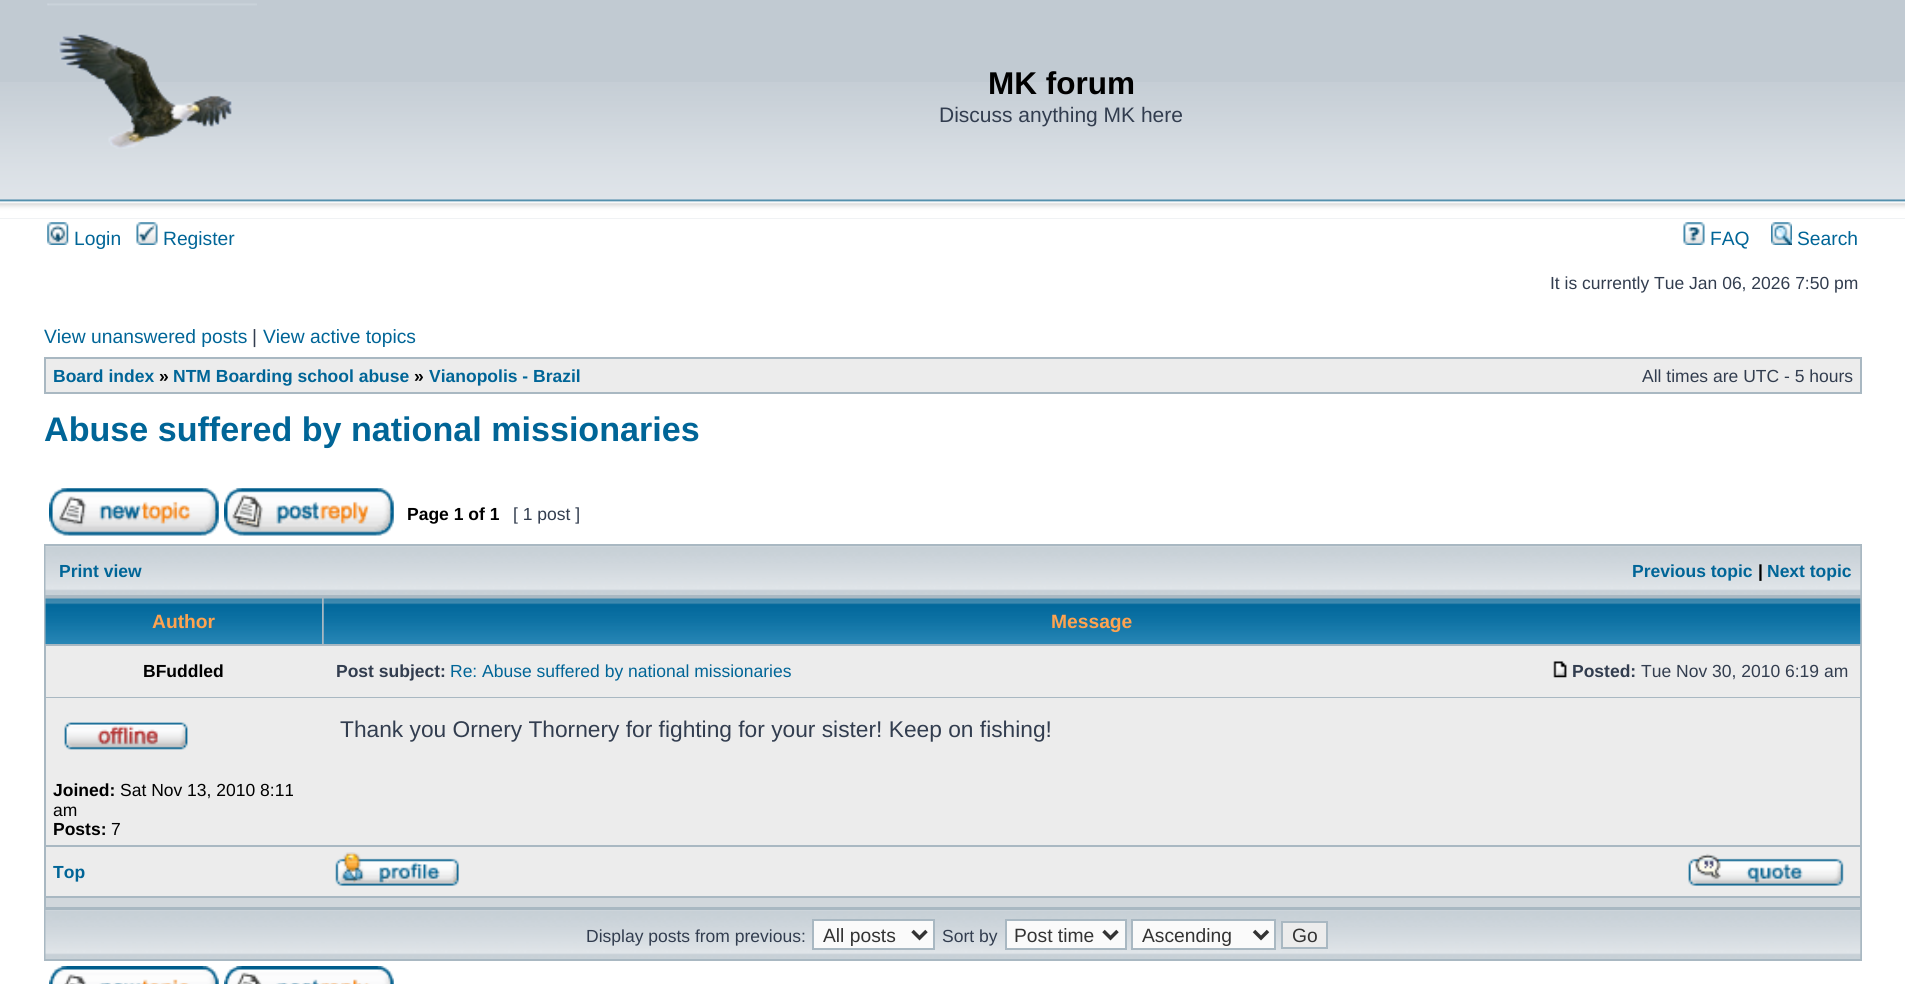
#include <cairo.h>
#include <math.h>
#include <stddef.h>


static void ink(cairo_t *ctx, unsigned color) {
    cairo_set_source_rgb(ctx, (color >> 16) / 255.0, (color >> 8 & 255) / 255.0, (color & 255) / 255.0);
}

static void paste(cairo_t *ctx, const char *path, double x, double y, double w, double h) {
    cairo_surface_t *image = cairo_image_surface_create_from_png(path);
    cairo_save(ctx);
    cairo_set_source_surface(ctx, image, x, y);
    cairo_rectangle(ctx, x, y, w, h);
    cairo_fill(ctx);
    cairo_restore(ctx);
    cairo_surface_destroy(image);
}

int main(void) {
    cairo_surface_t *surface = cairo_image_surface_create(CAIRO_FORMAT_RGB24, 1905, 984);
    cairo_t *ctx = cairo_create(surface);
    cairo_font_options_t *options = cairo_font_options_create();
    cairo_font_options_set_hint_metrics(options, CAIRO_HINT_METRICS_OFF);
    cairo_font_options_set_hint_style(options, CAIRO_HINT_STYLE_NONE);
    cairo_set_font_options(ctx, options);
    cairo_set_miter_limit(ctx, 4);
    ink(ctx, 0xFFFFFF);
    cairo_paint(ctx);
    ink(ctx, 0xC1CAD2);
    cairo_rectangle(ctx, 0, 0, 1905, 219);
    cairo_fill(ctx);
    paste(ctx, "media/1.png", 0, 82, 1905, 137);
    paste(ctx, "media/2.png", 47, 3, 210, 146);
    cairo_select_font_face(ctx, "Liberation Sans", CAIRO_FONT_SLANT_NORMAL, CAIRO_FONT_WEIGHT_BOLD);
    cairo_set_font_size(ctx, 31.5);
    ink(ctx, 0x000000);
    cairo_move_to(ctx, 988, 94);
    cairo_show_text(ctx, "MK forum");
    cairo_select_font_face(ctx, "Liberation Sans", CAIRO_FONT_SLANT_NORMAL, CAIRO_FONT_WEIGHT_NORMAL);
    cairo_set_font_size(ctx, 21);
    ink(ctx, 0x323D4F);
    cairo_move_to(ctx, 939, 122);
    cairo_show_text(ctx, "Discuss anything MK here");
    paste(ctx, "media/3.png", 47, 222, 22, 23);
    cairo_set_font_size(ctx, 19.25);
    ink(ctx, 0x006597);
    cairo_move_to(ctx, 74, 245);
    cairo_show_text(ctx, "Login");
    paste(ctx, "media/4.png", 136, 222, 22, 23);
    cairo_move_to(ctx, 163, 245);
    cairo_show_text(ctx, "Register");
    paste(ctx, "media/5.png", 1683, 222, 22, 23);
    cairo_move_to(ctx, 1710, 245);
    cairo_show_text(ctx, "FAQ");
    paste(ctx, "media/6.png", 1771, 222, 21, 23);
    cairo_move_to(ctx, 1797, 245);
    cairo_show_text(ctx, "Search");
    cairo_set_font_size(ctx, 17.5);
    ink(ctx, 0x323D4F);
    cairo_move_to(ctx, 1550, 289);
    cairo_show_text(ctx, "It is currently Tue Jan 06, 2026 7:50 pm");
    cairo_set_font_size(ctx, 19.25);
    ink(ctx, 0x006597);
    cairo_move_to(ctx, 44, 343);
    cairo_show_text(ctx, "View unanswered posts");
    ink(ctx, 0x323D4F);
    cairo_move_to(ctx, 252, 343);
    cairo_show_text(ctx, "|");
    ink(ctx, 0x006597);
    cairo_move_to(ctx, 263, 343);
    cairo_show_text(ctx, "View active topics");
    ink(ctx, 0xA9B8C2);
    cairo_rectangle(ctx, 44, 357, 1818, 37);
    cairo_fill(ctx);
    ink(ctx, 0xECECEC);
    cairo_rectangle(ctx, 46, 359, 1814, 33);
    cairo_fill(ctx);
    cairo_select_font_face(ctx, "Liberation Sans", CAIRO_FONT_SLANT_NORMAL, CAIRO_FONT_WEIGHT_BOLD);
    cairo_set_font_size(ctx, 17.5);
    ink(ctx, 0x006597);
    cairo_move_to(ctx, 53, 382);
    cairo_show_text(ctx, "Board index");
    ink(ctx, 0x000000);
    cairo_move_to(ctx, 159, 382);
    cairo_show_text(ctx, "»");
    ink(ctx, 0x006597);
    cairo_move_to(ctx, 173, 382);
    cairo_show_text(ctx, "NTM Boarding school abuse");
    ink(ctx, 0x000000);
    cairo_move_to(ctx, 414, 382);
    cairo_show_text(ctx, "»");
    ink(ctx, 0x006597);
    cairo_move_to(ctx, 429, 382);
    cairo_show_text(ctx, "Vianopolis - Brazil");
    cairo_select_font_face(ctx, "Liberation Sans", CAIRO_FONT_SLANT_NORMAL, CAIRO_FONT_WEIGHT_NORMAL);
    ink(ctx, 0x323D4F);
    cairo_move_to(ctx, 1642, 382);
    cairo_show_text(ctx, "All times are UTC - 5 hours");
    cairo_select_font_face(ctx, "Liberation Sans", CAIRO_FONT_SLANT_NORMAL, CAIRO_FONT_WEIGHT_BOLD);
    cairo_set_font_size(ctx, 34.1);
    ink(ctx, 0x006597);
    cairo_move_to(ctx, 44, 441);
    cairo_show_text(ctx, "Abuse suffered by national missionaries");
    paste(ctx, "media/7.png", 49, 488, 170, 48);
    paste(ctx, "media/8.png", 224, 488, 170, 48);
    cairo_set_font_size(ctx, 17.5);
    ink(ctx, 0x000000);
    cairo_move_to(ctx, 407, 520);
    cairo_show_text(ctx, "Page 1 of 1");
    cairo_select_font_face(ctx, "Liberation Sans", CAIRO_FONT_SLANT_NORMAL, CAIRO_FONT_WEIGHT_NORMAL);
    ink(ctx, 0x323D4F);
    cairo_move_to(ctx, 513, 520);
    cairo_show_text(ctx, "[ 1 post ]");
    ink(ctx, 0xA9B8C2);
    cairo_rectangle(ctx, 44, 544, 1818, 417);
    cairo_fill(ctx);
    paste(ctx, "media/9.png", 45, 546, 1816, 49);
    cairo_select_font_face(ctx, "Liberation Sans", CAIRO_FONT_SLANT_NORMAL, CAIRO_FONT_WEIGHT_BOLD);
    ink(ctx, 0x006597);
    cairo_move_to(ctx, 59, 577);
    cairo_show_text(ctx, "Print view");
    cairo_move_to(ctx, 1632, 577);
    cairo_show_text(ctx, "Previous topic");
    ink(ctx, 0x000000);
    cairo_move_to(ctx, 1758, 577);
    cairo_show_text(ctx, "|");
    ink(ctx, 0x006597);
    cairo_move_to(ctx, 1767, 577);
    cairo_show_text(ctx, "Next topic");
    paste(ctx, "media/10.png", 45, 598, 277, 46);
    cairo_set_font_size(ctx, 19.25);
    ink(ctx, 0xFFA34F);
    cairo_move_to(ctx, 152, 628);
    cairo_show_text(ctx, "Author");
    paste(ctx, "media/11.png", 323, 598, 1538, 46);
    cairo_move_to(ctx, 1051, 628);
    cairo_show_text(ctx, "Message");
    ink(ctx, 0xECECEC);
    cairo_rectangle(ctx, 46, 646, 1814, 51);
    cairo_fill(ctx);
    cairo_set_font_size(ctx, 17.5);
    ink(ctx, 0x000000);
    cairo_move_to(ctx, 143, 677);
    cairo_show_text(ctx, "BFuddled");
    ink(ctx, 0x323D4F);
    cairo_move_to(ctx, 336, 677);
    cairo_show_text(ctx, "Post subject:");
    cairo_select_font_face(ctx, "Liberation Sans", CAIRO_FONT_SLANT_NORMAL, CAIRO_FONT_WEIGHT_NORMAL);
    ink(ctx, 0x006597);
    cairo_move_to(ctx, 450, 677);
    cairo_show_text(ctx, "Re: Abuse suffered by national missionaries");
    paste(ctx, "media/12.png", 1553, 661, 14, 17);
    cairo_select_font_face(ctx, "Liberation Sans", CAIRO_FONT_SLANT_NORMAL, CAIRO_FONT_WEIGHT_BOLD);
    ink(ctx, 0x323D4F);
    cairo_move_to(ctx, 1572, 677);
    cairo_show_text(ctx, "Posted:");
    cairo_select_font_face(ctx, "Liberation Sans", CAIRO_FONT_SLANT_NORMAL, CAIRO_FONT_WEIGHT_NORMAL);
    cairo_move_to(ctx, 1641, 677);
    cairo_show_text(ctx, "Tue Nov 30, 2010 6:19 am");
    ink(ctx, 0xECECEC);
    cairo_rectangle(ctx, 46, 698, 1814, 147);
    cairo_fill(ctx);
    cairo_set_font_size(ctx, 22.75);
    ink(ctx, 0x323D4F);
    cairo_move_to(ctx, 340, 737);
    cairo_show_text(ctx, "Thank you Ornery Thornery for fighting for your sister! Keep on fishing!");
    paste(ctx, "media/13.png", 64, 722, 124, 28);
    cairo_select_font_face(ctx, "Liberation Sans", CAIRO_FONT_SLANT_NORMAL, CAIRO_FONT_WEIGHT_BOLD);
    cairo_set_font_size(ctx, 17.5);
    ink(ctx, 0x000000);
    cairo_move_to(ctx, 53, 796);
    cairo_show_text(ctx, "Joined:");
    cairo_select_font_face(ctx, "Liberation Sans", CAIRO_FONT_SLANT_NORMAL, CAIRO_FONT_WEIGHT_NORMAL);
    cairo_move_to(ctx, 120, 796);
    cairo_show_text(ctx, "Sat Nov 13, 2010 8:11");
    cairo_move_to(ctx, 53, 816);
    cairo_show_text(ctx, "am");
    cairo_select_font_face(ctx, "Liberation Sans", CAIRO_FONT_SLANT_NORMAL, CAIRO_FONT_WEIGHT_BOLD);
    cairo_move_to(ctx, 53, 835);
    cairo_show_text(ctx, "Posts:");
    cairo_select_font_face(ctx, "Liberation Sans", CAIRO_FONT_SLANT_NORMAL, CAIRO_FONT_WEIGHT_NORMAL);
    cairo_move_to(ctx, 111, 835);
    cairo_show_text(ctx, "7");
    ink(ctx, 0xECECEC);
    cairo_rectangle(ctx, 46, 847, 1814, 49);
    cairo_fill(ctx);
    cairo_select_font_face(ctx, "Liberation Sans", CAIRO_FONT_SLANT_NORMAL, CAIRO_FONT_WEIGHT_BOLD);
    ink(ctx, 0x006597);
    cairo_move_to(ctx, 53, 878);
    cairo_show_text(ctx, "Top");
    paste(ctx, "media/14.png", 335, 852, 124, 34);
    paste(ctx, "media/15.png", 1688, 853, 156, 33);
    ink(ctx, 0xD1D7DC);
    cairo_rectangle(ctx, 46, 898, 1814, 9);
    cairo_fill(ctx);
    paste(ctx, "media/9.png", 45, 910, 1816, 49);
    cairo_select_font_face(ctx, "Liberation Sans", CAIRO_FONT_SLANT_NORMAL, CAIRO_FONT_WEIGHT_NORMAL);
    ink(ctx, 0x323D4F);
    cairo_move_to(ctx, 586, 942);
    cairo_show_text(ctx, "Display posts from previous:");
    ink(ctx, 0xFAFAFA);
    cairo_rectangle(ctx, 813, 920, 121, 29);
    cairo_fill_preserve(ctx);
    ink(ctx, 0xA9B8C2);
    cairo_stroke(ctx);
    cairo_new_path(ctx);
    cairo_move_to(ctx, 912.5, 931);
    cairo_line_to(ctx, 919.5, 938);
    cairo_line_to(ctx, 926.5, 931);
    ink(ctx, 0x333333);
    cairo_set_line_width(ctx, 3.5);
    cairo_stroke(ctx);
    cairo_set_font_size(ctx, 19.25);
    cairo_move_to(ctx, 823, 942);
    cairo_show_text(ctx, "All posts");
    cairo_set_font_size(ctx, 17.5);
    ink(ctx, 0x323D4F);
    cairo_move_to(ctx, 942, 942);
    cairo_show_text(ctx, "Sort by");
    ink(ctx, 0xFAFAFA);
    cairo_rectangle(ctx, 1006, 920, 120, 29);
    cairo_fill_preserve(ctx);
    ink(ctx, 0xA9B8C2);
    cairo_set_line_width(ctx, 2);
    cairo_stroke(ctx);
    cairo_new_path(ctx);
    cairo_move_to(ctx, 1103.5, 931);
    cairo_line_to(ctx, 1110.5, 938);
    cairo_line_to(ctx, 1117.5, 931);
    ink(ctx, 0x333333);
    cairo_set_line_width(ctx, 3.5);
    cairo_stroke(ctx);
    cairo_set_font_size(ctx, 19.25);
    cairo_move_to(ctx, 1014, 942);
    cairo_show_text(ctx, "Post time");
    ink(ctx, 0xFAFAFA);
    cairo_rectangle(ctx, 1132, 920, 143, 29);
    cairo_fill_preserve(ctx);
    ink(ctx, 0xA9B8C2);
    cairo_set_line_width(ctx, 2);
    cairo_stroke(ctx);
    cairo_new_path(ctx);
    cairo_move_to(ctx, 1254, 931);
    cairo_line_to(ctx, 1261, 938);
    cairo_line_to(ctx, 1268, 931);
    ink(ctx, 0x333333);
    cairo_set_line_width(ctx, 3.5);
    cairo_stroke(ctx);
    cairo_move_to(ctx, 1142, 942);
    cairo_show_text(ctx, "Ascending");
    ink(ctx, 0xECECEC);
    cairo_rectangle(ctx, 1282, 922, 45, 26);
    cairo_fill_preserve(ctx);
    ink(ctx, 0xA9B8C2);
    cairo_set_line_width(ctx, 2);
    cairo_stroke(ctx);
    ink(ctx, 0x333333);
    cairo_move_to(ctx, 1292, 942);
    cairo_show_text(ctx, "Go");
    paste(ctx, "media/16.png", 49, 966, 170, 18);
    paste(ctx, "media/17.png", 224, 966, 170, 18);
    cairo_surface_write_to_png(surface, "image.png");
    cairo_font_options_destroy(options);
    cairo_destroy(ctx);
    cairo_surface_destroy(surface);
    return 0;
}
